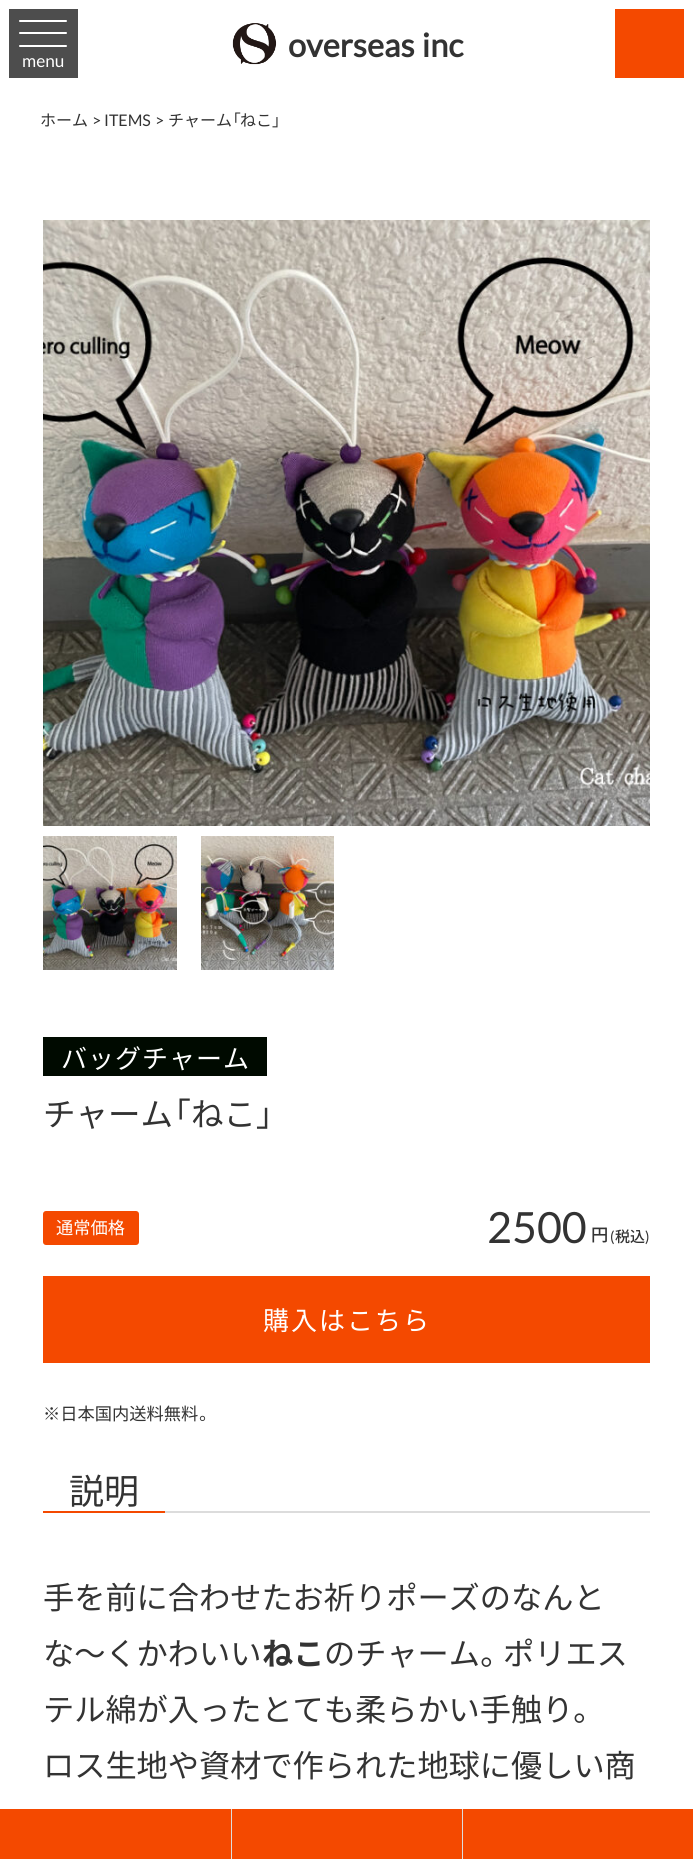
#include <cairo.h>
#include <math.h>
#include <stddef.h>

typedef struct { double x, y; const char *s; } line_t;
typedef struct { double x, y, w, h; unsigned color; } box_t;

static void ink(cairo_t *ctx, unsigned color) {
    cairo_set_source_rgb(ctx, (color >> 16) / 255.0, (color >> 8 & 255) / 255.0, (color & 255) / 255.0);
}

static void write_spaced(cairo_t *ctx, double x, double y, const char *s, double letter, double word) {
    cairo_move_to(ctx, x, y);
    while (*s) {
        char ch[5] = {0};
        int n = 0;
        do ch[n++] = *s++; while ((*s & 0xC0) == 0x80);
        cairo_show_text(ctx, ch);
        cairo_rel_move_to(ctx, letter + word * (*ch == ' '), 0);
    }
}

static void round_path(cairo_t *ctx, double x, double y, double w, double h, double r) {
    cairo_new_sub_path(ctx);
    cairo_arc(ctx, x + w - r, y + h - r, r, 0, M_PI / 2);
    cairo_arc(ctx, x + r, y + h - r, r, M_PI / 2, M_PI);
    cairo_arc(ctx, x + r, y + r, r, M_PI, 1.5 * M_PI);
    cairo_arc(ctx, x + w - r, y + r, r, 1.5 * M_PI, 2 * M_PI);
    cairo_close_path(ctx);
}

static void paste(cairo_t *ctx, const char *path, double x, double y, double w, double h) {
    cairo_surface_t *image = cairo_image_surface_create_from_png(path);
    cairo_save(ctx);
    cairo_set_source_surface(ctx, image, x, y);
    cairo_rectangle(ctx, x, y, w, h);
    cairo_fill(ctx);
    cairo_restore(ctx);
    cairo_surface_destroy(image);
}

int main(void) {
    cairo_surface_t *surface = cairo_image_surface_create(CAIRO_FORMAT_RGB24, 693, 1859);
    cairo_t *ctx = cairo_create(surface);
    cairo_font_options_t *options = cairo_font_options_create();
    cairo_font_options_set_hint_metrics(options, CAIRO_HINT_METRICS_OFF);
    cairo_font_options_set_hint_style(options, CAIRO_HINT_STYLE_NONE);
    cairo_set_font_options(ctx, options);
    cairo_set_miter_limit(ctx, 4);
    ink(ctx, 0xFFFFFF);
    cairo_paint(ctx);
    paste(ctx, "media/1.png", 232, 23, 45, 42);
    cairo_select_font_face(ctx, "Lato", CAIRO_FONT_SLANT_NORMAL, CAIRO_FONT_WEIGHT_BOLD);
    cairo_set_font_size(ctx, 32.5);
    ink(ctx, 0x333333);
    write_spaced(ctx, 288, 57, "overseas inc", 0, 1);
    ink(ctx, 0xF44900);
    cairo_rectangle(ctx, 615, 9, 69, 69);
    cairo_fill(ctx);
    ink(ctx, 0x4D4D4D);
    cairo_rectangle(ctx, 9, 9, 69, 69);
    cairo_fill(ctx);
    ink(ctx, 0xFFFFFF);
    round_path(ctx, 19, 20, 48, 2, 1);
    cairo_fill(ctx);
    round_path(ctx, 19, 32, 48, 2, 1);
    cairo_fill(ctx);
    round_path(ctx, 19, 45, 48, 2, 1);
    cairo_fill(ctx);
    cairo_select_font_face(ctx, "Lato", CAIRO_FONT_SLANT_NORMAL, CAIRO_FONT_WEIGHT_NORMAL);
    cairo_set_font_size(ctx, 17.25);
    cairo_move_to(ctx, 22, 67);
    cairo_show_text(ctx, "menu");
    cairo_select_font_face(ctx, "Noto Sans JP", CAIRO_FONT_SLANT_NORMAL, CAIRO_FONT_WEIGHT_NORMAL);
    cairo_set_font_size(ctx, 16);
    ink(ctx, 0x333333);
    cairo_move_to(ctx, 40, 126);
    cairo_show_text(ctx, "ホーム");
    cairo_select_font_face(ctx, "Lato", CAIRO_FONT_SLANT_NORMAL, CAIRO_FONT_WEIGHT_NORMAL);
    {
        static const line_t items[] = {
            {92, 126, ">"},
            {104, 126, "ITEMS"},
            {155, 126, ">"},
        };
        for (size_t i = 0; i < sizeof items / sizeof *items; i++) {
            cairo_move_to(ctx, items[i].x, items[i].y);
            cairo_show_text(ctx, items[i].s);
        }
    }
    cairo_select_font_face(ctx, "Noto Sans JP", CAIRO_FONT_SLANT_NORMAL, CAIRO_FONT_WEIGHT_NORMAL);
    cairo_move_to(ctx, 168, 126);
    cairo_show_text(ctx, "チャーム");
    cairo_select_font_face(ctx, "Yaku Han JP", CAIRO_FONT_SLANT_NORMAL, CAIRO_FONT_WEIGHT_NORMAL);
    cairo_move_to(ctx, 232, 126);
    cairo_show_text(ctx, "「");
    cairo_select_font_face(ctx, "Noto Sans JP", CAIRO_FONT_SLANT_NORMAL, CAIRO_FONT_WEIGHT_NORMAL);
    cairo_move_to(ctx, 240, 126);
    cairo_show_text(ctx, "ねこ");
    cairo_select_font_face(ctx, "Yaku Han JP", CAIRO_FONT_SLANT_NORMAL, CAIRO_FONT_WEIGHT_NORMAL);
    cairo_move_to(ctx, 272, 126);
    cairo_show_text(ctx, "」");
    paste(ctx, "media/2.png", 43, 220, 607, 606);
    paste(ctx, "media/3.png", 43, 836, 134, 134);
    paste(ctx, "media/4.png", 201, 836, 133, 134);
    ink(ctx, 0x000A00);
    cairo_rectangle(ctx, 43, 1037, 224, 39);
    cairo_fill(ctx);
    cairo_select_font_face(ctx, "Noto Sans JP", CAIRO_FONT_SLANT_NORMAL, CAIRO_FONT_WEIGHT_NORMAL);
    cairo_set_font_size(ctx, 26);
    ink(ctx, 0xFFFFFF);
    write_spaced(ctx, 61, 1068, "バッグチャーム", 1, 0);
    cairo_set_font_size(ctx, 32.5);
    ink(ctx, 0x333333);
    cairo_move_to(ctx, 43, 1126);
    cairo_show_text(ctx, "チャーム");
    cairo_select_font_face(ctx, "Yaku Han JP", CAIRO_FONT_SLANT_NORMAL, CAIRO_FONT_WEIGHT_NORMAL);
    cairo_move_to(ctx, 173, 1126);
    cairo_show_text(ctx, "「");
    cairo_select_font_face(ctx, "Noto Sans JP", CAIRO_FONT_SLANT_NORMAL, CAIRO_FONT_WEIGHT_NORMAL);
    cairo_move_to(ctx, 191, 1126);
    cairo_show_text(ctx, "ねこ");
    cairo_select_font_face(ctx, "Yaku Han JP", CAIRO_FONT_SLANT_NORMAL, CAIRO_FONT_WEIGHT_NORMAL);
    cairo_move_to(ctx, 256, 1126);
    cairo_show_text(ctx, "」");
    ink(ctx, 0xF44900);
    round_path(ctx, 43, 1211, 96, 34, 3);
    cairo_fill(ctx);
    cairo_select_font_face(ctx, "Noto Sans JP", CAIRO_FONT_SLANT_NORMAL, CAIRO_FONT_WEIGHT_NORMAL);
    cairo_set_font_size(ctx, 17.25);
    ink(ctx, 0xFFFFFF);
    cairo_move_to(ctx, 56, 1234);
    cairo_show_text(ctx, "通常価格");
    cairo_select_font_face(ctx, "Lato", CAIRO_FONT_SLANT_NORMAL, CAIRO_FONT_WEIGHT_NORMAL);
    cairo_set_font_size(ctx, 43);
    ink(ctx, 0x333333);
    cairo_move_to(ctx, 487, 1243);
    cairo_show_text(ctx, "2500");
    cairo_select_font_face(ctx, "Noto Sans JP Medium", CAIRO_FONT_SLANT_NORMAL, CAIRO_FONT_WEIGHT_NORMAL);
    cairo_set_font_size(ctx, 17.25);
    cairo_move_to(ctx, 591, 1241);
    cairo_show_text(ctx, "円");
    cairo_select_font_face(ctx, "Lato", CAIRO_FONT_SLANT_NORMAL, CAIRO_FONT_WEIGHT_NORMAL);
    cairo_set_font_size(ctx, 15);
    cairo_move_to(ctx, 610, 1242);
    cairo_show_text(ctx, "(");
    cairo_select_font_face(ctx, "Noto Sans JP Medium", CAIRO_FONT_SLANT_NORMAL, CAIRO_FONT_WEIGHT_NORMAL);
    cairo_move_to(ctx, 615, 1242);
    cairo_show_text(ctx, "税込");
    cairo_select_font_face(ctx, "Lato", CAIRO_FONT_SLANT_NORMAL, CAIRO_FONT_WEIGHT_NORMAL);
    cairo_move_to(ctx, 645, 1242);
    cairo_show_text(ctx, ")");
    ink(ctx, 0xF44900);
    cairo_rectangle(ctx, 43, 1276, 607, 87);
    cairo_fill(ctx);
    cairo_select_font_face(ctx, "Noto Sans JP", CAIRO_FONT_SLANT_NORMAL, CAIRO_FONT_WEIGHT_NORMAL);
    cairo_set_font_size(ctx, 26);
    ink(ctx, 0xFFFFFF);
    write_spaced(ctx, 263, 1330, "購入はこちら", 2, 0);
    cairo_set_font_size(ctx, 17.25);
    ink(ctx, 0x333333);
    cairo_move_to(ctx, 43, 1420);
    cairo_show_text(ctx, "※日本国内送料無料");
    cairo_select_font_face(ctx, "Yaku Han JP", CAIRO_FONT_SLANT_NORMAL, CAIRO_FONT_WEIGHT_NORMAL);
    cairo_move_to(ctx, 199, 1420);
    cairo_show_text(ctx, "。");
    ink(ctx, 0xDCDCDC);
    cairo_rectangle(ctx, 165, 1511, 485, 2);
    cairo_fill(ctx);
    ink(ctx, 0xF44900);
    cairo_rectangle(ctx, 43, 1511, 122, 2);
    cairo_fill(ctx);
    cairo_select_font_face(ctx, "Noto Sans JP", CAIRO_FONT_SLANT_NORMAL, CAIRO_FONT_WEIGHT_NORMAL);
    cairo_set_font_size(ctx, 35);
    ink(ctx, 0x333333);
    cairo_move_to(ctx, 69, 1504);
    cairo_show_text(ctx, "説明");
    cairo_set_font_size(ctx, 31.2);
    cairo_move_to(ctx, 43, 1609);
    cairo_show_text(ctx, "手を前に合わせたお祈りポーズのなんと");
    cairo_move_to(ctx, 43, 1665);
    cairo_show_text(ctx, "な〜くかわいい");
    cairo_select_font_face(ctx, "Noto Sans JP", CAIRO_FONT_SLANT_NORMAL, CAIRO_FONT_WEIGHT_BOLD);
    cairo_move_to(ctx, 262, 1665);
    cairo_show_text(ctx, "ねこ");
    cairo_select_font_face(ctx, "Noto Sans JP", CAIRO_FONT_SLANT_NORMAL, CAIRO_FONT_WEIGHT_NORMAL);
    cairo_move_to(ctx, 324, 1665);
    cairo_show_text(ctx, "のチャーム");
    cairo_select_font_face(ctx, "Yaku Han JP", CAIRO_FONT_SLANT_NORMAL, CAIRO_FONT_WEIGHT_NORMAL);
    cairo_move_to(ctx, 480, 1665);
    cairo_show_text(ctx, "。");
    cairo_select_font_face(ctx, "Noto Sans JP", CAIRO_FONT_SLANT_NORMAL, CAIRO_FONT_WEIGHT_NORMAL);
    cairo_move_to(ctx, 503, 1665);
    cairo_show_text(ctx, "ポリエス");
    cairo_move_to(ctx, 43, 1721);
    cairo_show_text(ctx, "テル綿が入ったとても柔らかい手触り");
    cairo_select_font_face(ctx, "Yaku Han JP", CAIRO_FONT_SLANT_NORMAL, CAIRO_FONT_WEIGHT_NORMAL);
    cairo_move_to(ctx, 573, 1721);
    cairo_show_text(ctx, "。");
    cairo_select_font_face(ctx, "Noto Sans JP", CAIRO_FONT_SLANT_NORMAL, CAIRO_FONT_WEIGHT_NORMAL);
    cairo_move_to(ctx, 43, 1777);
    cairo_show_text(ctx, "ロス生地や資材で作られた地球に優しい商");
    {
        static const box_t items[] = {
            {0, 1809, 231, 50, 0xF44900},
            {232, 1809, 230, 50, 0xF44900},
            {231, 1809, 1, 50, 0xDDDDDD},
            {463, 1809, 230, 50, 0xF44900},
            {462, 1809, 1, 50, 0xDDDDDD},
        };
        for (size_t i = 0; i < sizeof items / sizeof *items; i++) {
            ink(ctx, items[i].color);
            cairo_rectangle(ctx, items[i].x, items[i].y, items[i].w, items[i].h);
            cairo_fill(ctx);
        }
    }
    cairo_surface_write_to_png(surface, "image.png");
    cairo_font_options_destroy(options);
    cairo_destroy(ctx);
    cairo_surface_destroy(surface);
    return 0;
}
